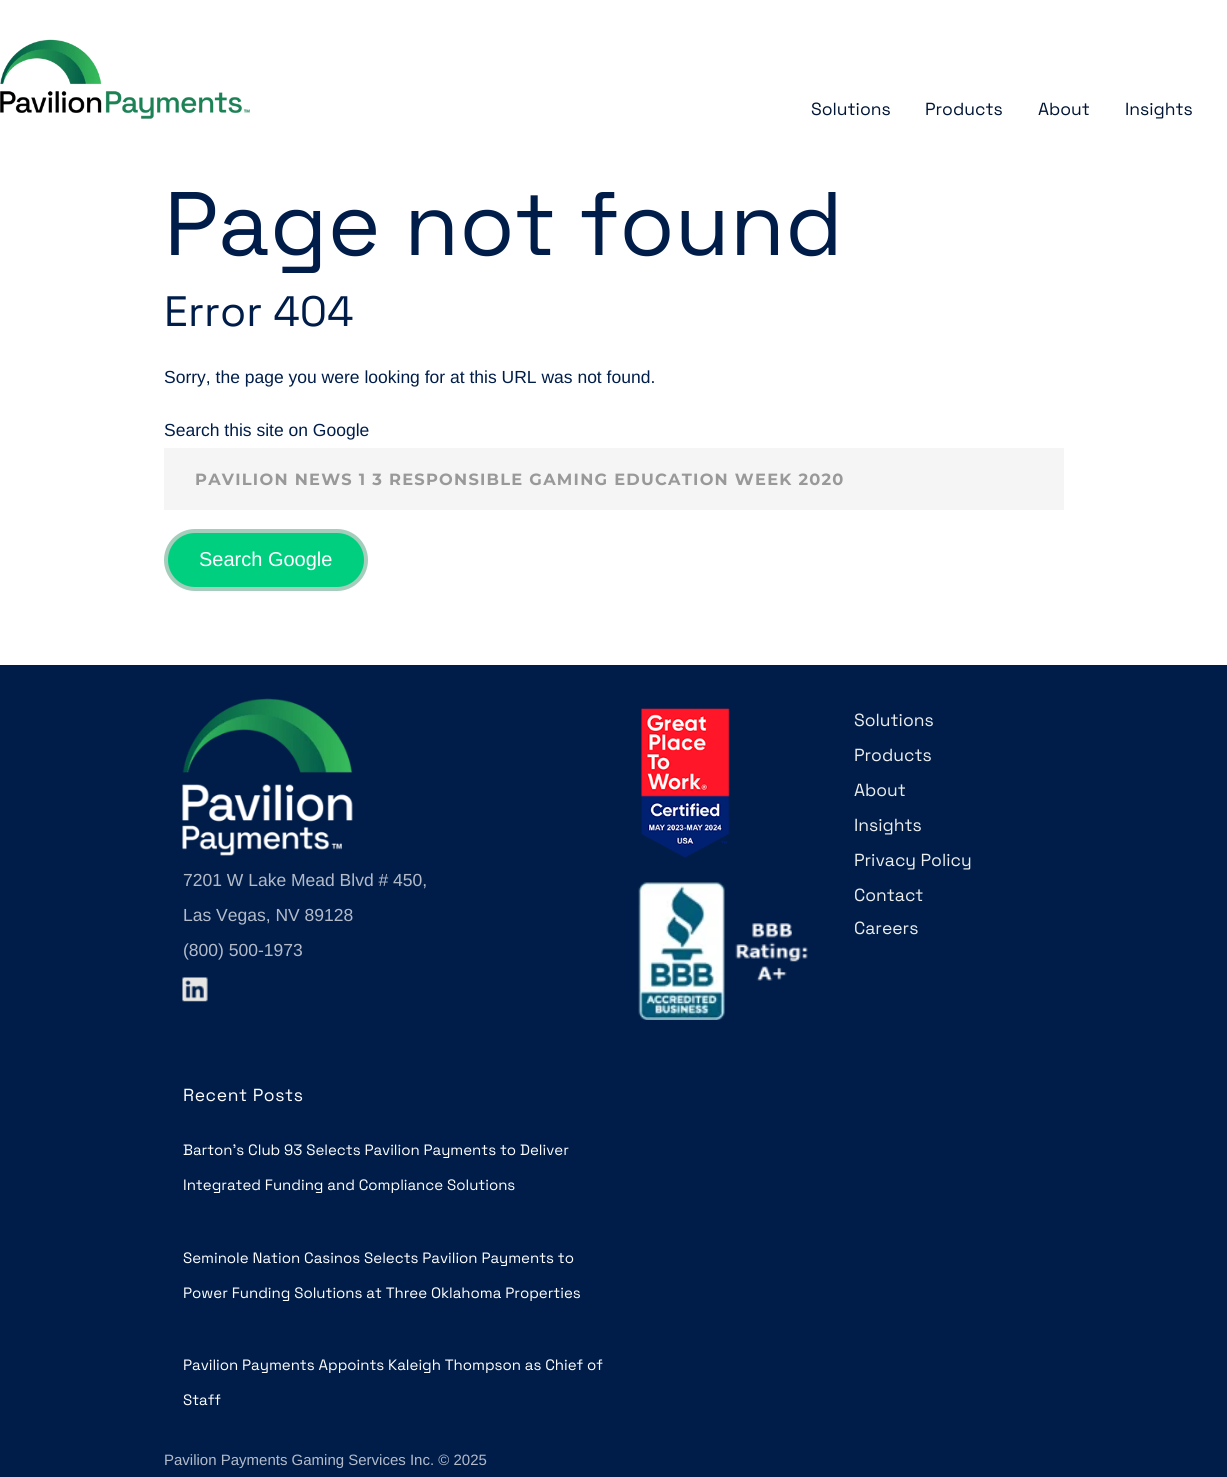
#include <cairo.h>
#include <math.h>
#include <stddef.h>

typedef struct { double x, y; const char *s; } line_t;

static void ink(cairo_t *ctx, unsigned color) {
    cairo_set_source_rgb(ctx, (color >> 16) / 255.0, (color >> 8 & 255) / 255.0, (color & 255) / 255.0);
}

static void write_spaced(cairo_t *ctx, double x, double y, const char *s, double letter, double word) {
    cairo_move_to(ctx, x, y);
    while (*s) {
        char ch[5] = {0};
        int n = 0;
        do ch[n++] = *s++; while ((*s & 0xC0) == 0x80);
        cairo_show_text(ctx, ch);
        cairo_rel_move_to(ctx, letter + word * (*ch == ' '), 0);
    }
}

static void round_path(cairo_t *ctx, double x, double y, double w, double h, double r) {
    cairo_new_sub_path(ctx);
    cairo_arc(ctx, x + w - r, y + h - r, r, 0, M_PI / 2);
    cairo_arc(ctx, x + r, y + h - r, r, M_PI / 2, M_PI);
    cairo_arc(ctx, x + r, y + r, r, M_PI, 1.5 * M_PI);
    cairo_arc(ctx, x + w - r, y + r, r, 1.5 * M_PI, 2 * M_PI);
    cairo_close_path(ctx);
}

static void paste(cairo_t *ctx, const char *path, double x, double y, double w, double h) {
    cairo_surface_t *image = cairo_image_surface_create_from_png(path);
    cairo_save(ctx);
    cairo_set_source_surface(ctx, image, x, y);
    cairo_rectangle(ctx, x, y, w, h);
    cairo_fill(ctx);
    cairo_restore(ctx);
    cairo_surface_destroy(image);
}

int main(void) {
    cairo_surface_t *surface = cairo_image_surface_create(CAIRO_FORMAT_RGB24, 1227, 1477);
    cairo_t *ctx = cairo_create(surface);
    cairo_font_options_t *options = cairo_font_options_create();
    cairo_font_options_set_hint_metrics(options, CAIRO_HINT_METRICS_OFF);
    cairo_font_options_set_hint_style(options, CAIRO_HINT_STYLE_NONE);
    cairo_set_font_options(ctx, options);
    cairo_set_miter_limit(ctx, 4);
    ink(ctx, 0xFFFFFF);
    cairo_paint(ctx);
    paste(ctx, "media/1.png", 0, 39, 250, 80);
    cairo_select_font_face(ctx, "Space Grotesk", CAIRO_FONT_SLANT_NORMAL, CAIRO_FONT_WEIGHT_NORMAL);
    cairo_set_font_size(ctx, 17.5);
    ink(ctx, 0x001434);
    {
        static const line_t items[] = {
            {811, 115, "Solutions"},
            {925, 115, "Products"},
            {1038, 115, "About"},
            {1125, 115, "Insights"},
        };
        for (size_t i = 0; i < sizeof items / sizeof *items; i++) {
            cairo_move_to(ctx, items[i].x, items[i].y);
            cairo_show_text(ctx, items[i].s);
        }
    }
    cairo_set_font_size(ctx, 90);
    ink(ctx, 0x001D4A);
    cairo_move_to(ctx, 164, 255);
    cairo_show_text(ctx, "Page not found");
    cairo_set_font_size(ctx, 42.5);
    cairo_move_to(ctx, 164, 326);
    cairo_show_text(ctx, "Error 404");
    cairo_select_font_face(ctx, "Liberation Sans", CAIRO_FONT_SLANT_NORMAL, CAIRO_FONT_WEIGHT_NORMAL);
    cairo_set_font_size(ctx, 17.5);
    cairo_move_to(ctx, 164, 383);
    cairo_show_text(ctx, "Sorry, the page you were looking for at this URL was not found.");
    cairo_move_to(ctx, 164, 436);
    cairo_show_text(ctx, "Search this site on Google");
    ink(ctx, 0xF5F5F5);
    cairo_rectangle(ctx, 164, 448, 900, 62);
    cairo_fill(ctx);
    cairo_select_font_face(ctx, "Montserrat", CAIRO_FONT_SLANT_NORMAL, CAIRO_FONT_WEIGHT_BOLD);
    cairo_set_font_size(ctx, 16.25);
    ink(ctx, 0x999999);
    write_spaced(ctx, 195, 485, "PAVILION NEWS 1 3 RESPONSIBLE GAMING EDUCATION WEEK 2020", 1.25, 0);
    ink(ctx, 0x00CF80);
    round_path(ctx, 166, 531, 200, 58, 29);
    cairo_fill_preserve(ctx);
    ink(ctx, 0xA4CDBB);
    cairo_set_line_width(ctx, 4);
    cairo_stroke(ctx);
    cairo_select_font_face(ctx, "Liberation Sans", CAIRO_FONT_SLANT_NORMAL, CAIRO_FONT_WEIGHT_NORMAL);
    cairo_set_font_size(ctx, 20);
    ink(ctx, 0xFFFFFF);
    cairo_move_to(ctx, 199, 566);
    cairo_show_text(ctx, "Search Google");
    ink(ctx, 0x001D4A);
    cairo_rectangle(ctx, 0, 665, 1227, 812);
    cairo_fill(ctx);
    paste(ctx, "media/2.png", 182, 698, 171, 158);
    cairo_set_font_size(ctx, 17.5);
    ink(ctx, 0xB3BBC9);
    {
        static const line_t items[] = {
            {183, 886, "7201 W Lake Mead Blvd # 450,"},
            {183, 921, "Las Vegas, NV 89128"},
            {183, 956, "(800) 500-1973"},
        };
        for (size_t i = 0; i < sizeof items / sizeof *items; i++) {
            cairo_move_to(ctx, items[i].x, items[i].y);
            cairo_show_text(ctx, items[i].s);
        }
    }
    paste(ctx, "media/3.png", 182, 977, 26, 25);
    paste(ctx, "media/4.png", 641, 708, 89, 150);
    paste(ctx, "media/5.png", 638, 882, 170, 138);
    cairo_select_font_face(ctx, "Space Grotesk", CAIRO_FONT_SLANT_NORMAL, CAIRO_FONT_WEIGHT_NORMAL);
    ink(ctx, 0xEBEEED);
    {
        static const line_t items[] = {
            {854, 726, "Solutions"},
            {854, 761, "Products"},
            {854, 796, "About"},
            {854, 831, "Insights"},
            {854, 866, "Privacy Policy"},
            {854, 901, "Contact"},
            {854, 934, "Careers"},
        };
        for (size_t i = 0; i < sizeof items / sizeof *items; i++) {
            cairo_move_to(ctx, items[i].x, items[i].y);
            cairo_show_text(ctx, items[i].s);
        }
    }
    ink(ctx, 0xFFFFFF);
    write_spaced(ctx, 183, 1101, "Recent Posts", 0.6, 0);
    cairo_set_font_size(ctx, 15);
    {
        static const line_t items[] = {
            {183, 1155, "Barton’s Club 93 Selects Pavilion Payments to Deliver"},
            {183, 1190, "Integrated Funding and Compliance Solutions"},
            {183, 1263, "Seminole Nation Casinos Selects Pavilion Payments to"},
            {183, 1298, "Power Funding Solutions at Three Oklahoma Properties"},
            {183, 1370, "Pavilion Payments Appoints Kaleigh Thompson as Chief of"},
            {183, 1405, "Staff"},
        };
        for (size_t i = 0; i < sizeof items / sizeof *items; i++) {
            cairo_move_to(ctx, items[i].x, items[i].y);
            cairo_show_text(ctx, items[i].s);
        }
    }
    cairo_select_font_face(ctx, "Liberation Sans", CAIRO_FONT_SLANT_NORMAL, CAIRO_FONT_WEIGHT_NORMAL);
    ink(ctx, 0xB3BBC9);
    cairo_move_to(ctx, 164, 1465);
    cairo_show_text(ctx, "Pavilion Payments Gaming Services Inc. © 2025");
    cairo_surface_write_to_png(surface, "image.png");
    cairo_font_options_destroy(options);
    cairo_destroy(ctx);
    cairo_surface_destroy(surface);
    return 0;
}
